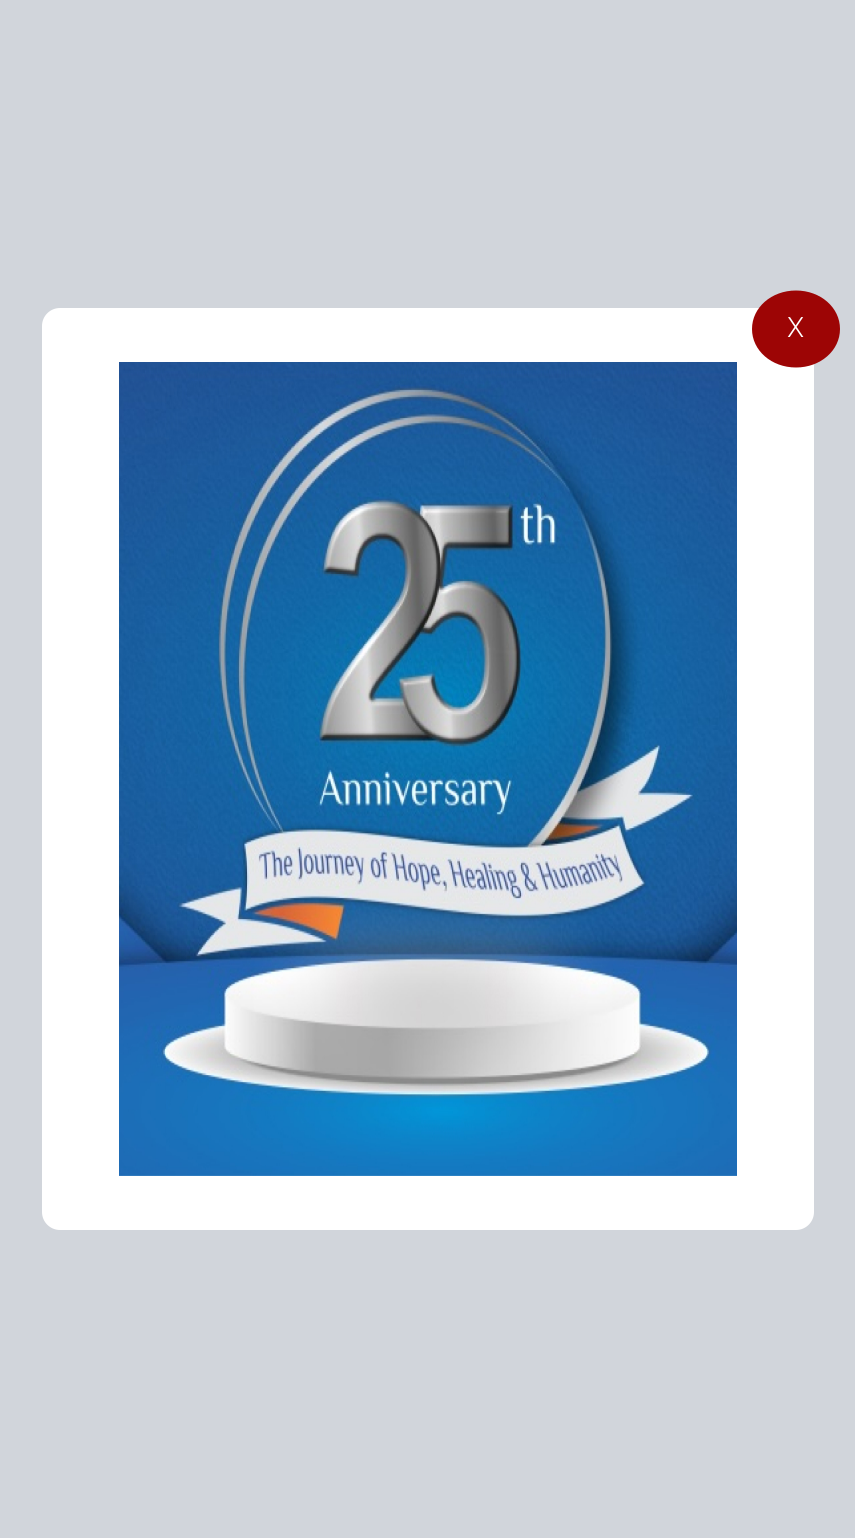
#include <cairo.h>
#include <math.h>
#include <stddef.h>


static void ink(cairo_t *ctx, unsigned color) {
    cairo_set_source_rgb(ctx, (color >> 16) / 255.0, (color >> 8 & 255) / 255.0, (color & 255) / 255.0);
}

static void round_path(cairo_t *ctx, double x, double y, double w, double h, double r) {
    cairo_new_sub_path(ctx);
    cairo_arc(ctx, x + w - r, y + h - r, r, 0, M_PI / 2);
    cairo_arc(ctx, x + r, y + h - r, r, M_PI / 2, M_PI);
    cairo_arc(ctx, x + r, y + r, r, M_PI, 1.5 * M_PI);
    cairo_arc(ctx, x + w - r, y + r, r, 1.5 * M_PI, 2 * M_PI);
    cairo_close_path(ctx);
}

static void paste(cairo_t *ctx, const char *path, double x, double y, double w, double h) {
    cairo_surface_t *image = cairo_image_surface_create_from_png(path);
    cairo_save(ctx);
    cairo_set_source_surface(ctx, image, x, y);
    cairo_rectangle(ctx, x, y, w, h);
    cairo_fill(ctx);
    cairo_restore(ctx);
    cairo_surface_destroy(image);
}

int main(void) {
    cairo_surface_t *surface = cairo_image_surface_create(CAIRO_FORMAT_RGB24, 855, 1538);
    cairo_t *ctx = cairo_create(surface);
    cairo_font_options_t *options = cairo_font_options_create();
    cairo_font_options_set_hint_metrics(options, CAIRO_HINT_METRICS_OFF);
    cairo_font_options_set_hint_style(options, CAIRO_HINT_STYLE_NONE);
    cairo_set_font_options(ctx, options);
    cairo_set_miter_limit(ctx, 4);
    ink(ctx, 0xD1D5DB);
    cairo_paint(ctx);
    ink(ctx, 0xFFFFFF);
    round_path(ctx, 42, 308, 772, 922, 18);
    cairo_fill(ctx);
    ink(ctx, 0x9D0505);
    cairo_new_path(ctx);
    cairo_move_to(ctx, 796, 290.5);
    cairo_curve_to(ctx, 820.5, 290.5, 840, 307.5, 840, 329);
    cairo_curve_to(ctx, 840, 350.5, 820.5, 367.5, 796, 367.5);
    cairo_curve_to(ctx, 771.5, 367.5, 752, 350.5, 752, 329);
    cairo_curve_to(ctx, 752, 307.5, 771.5, 290.5, 796, 290.5);
    cairo_close_path(ctx);
    cairo_fill(ctx);
    cairo_select_font_face(ctx, "Roboto Light", CAIRO_FONT_SLANT_NORMAL, CAIRO_FONT_WEIGHT_NORMAL);
    cairo_set_font_size(ctx, 28);
    ink(ctx, 0xFFFFFF);
    cairo_move_to(ctx, 787, 337);
    cairo_show_text(ctx, "X");
    paste(ctx, "media/1.png", 119, 362, 618, 814);
    cairo_surface_write_to_png(surface, "image.png");
    cairo_font_options_destroy(options);
    cairo_destroy(ctx);
    cairo_surface_destroy(surface);
    return 0;
}
